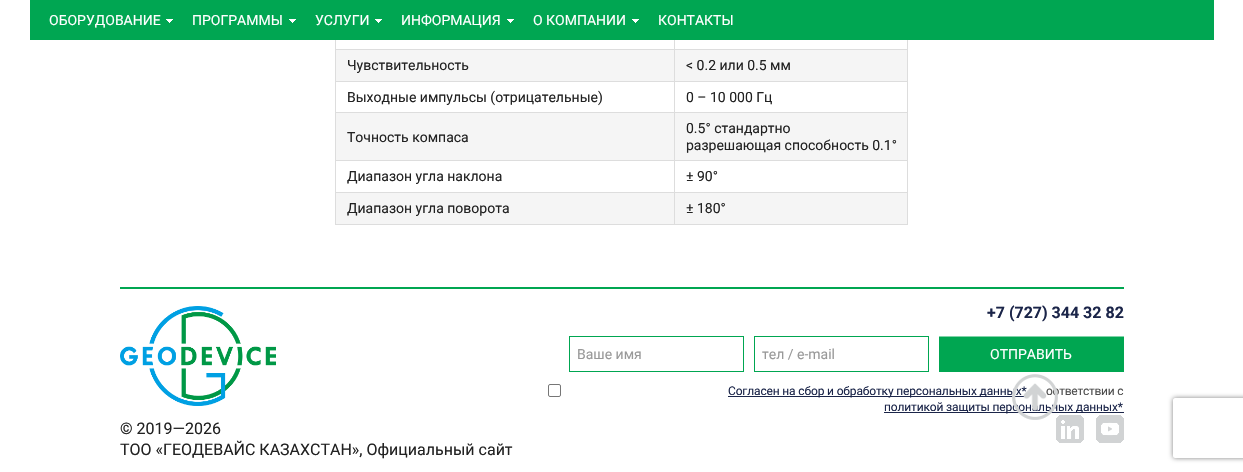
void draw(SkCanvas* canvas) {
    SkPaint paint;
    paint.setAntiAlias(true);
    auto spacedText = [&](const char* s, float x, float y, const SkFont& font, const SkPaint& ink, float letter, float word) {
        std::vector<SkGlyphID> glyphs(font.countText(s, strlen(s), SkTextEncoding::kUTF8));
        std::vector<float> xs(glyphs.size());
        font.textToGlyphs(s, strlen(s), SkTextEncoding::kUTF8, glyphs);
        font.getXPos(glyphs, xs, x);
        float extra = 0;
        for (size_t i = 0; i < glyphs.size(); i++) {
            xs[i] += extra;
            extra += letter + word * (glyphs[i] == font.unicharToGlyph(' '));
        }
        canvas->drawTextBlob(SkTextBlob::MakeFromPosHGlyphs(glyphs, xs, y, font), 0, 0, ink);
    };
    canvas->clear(0xFFFFFFFF);
    paint.setColor(0xFF00A652);
    canvas->drawRect(SkRect::MakeXYWH(30, 0, 1184, 40), paint);
    SkFont font1(fontMgr->matchFamilyStyle("Roboto", SkFontStyle::Normal()), 14);
    font1.setSubpixel(true);
    paint.setColor(0xFFFFFFFF);
    canvas->drawString("ОБОРУДОВАНИЕ", 49, 25, font1, paint);
    canvas->drawImageRect(SkImages::DeferredFromEncodedData(SkData::MakeFromFileName("img1.png")), SkRect::MakeXYWH(166, 19, 7, 4), SkSamplingOptions());
    canvas->drawString("ПРОГРАММЫ", 192, 25, font1, paint);
    canvas->drawImageRect(SkImages::DeferredFromEncodedData(SkData::MakeFromFileName("img1.png")), SkRect::MakeXYWH(289, 19, 7, 4), SkSamplingOptions());
    canvas->drawString("УСЛУГИ", 315, 25, font1, paint);
    canvas->drawImageRect(SkImages::DeferredFromEncodedData(SkData::MakeFromFileName("img1.png")), SkRect::MakeXYWH(375, 19, 7, 4), SkSamplingOptions());
    canvas->drawString("ИНФОРМАЦИЯ", 401, 25, font1, paint);
    canvas->drawImageRect(SkImages::DeferredFromEncodedData(SkData::MakeFromFileName("img1.png")), SkRect::MakeXYWH(507, 19, 7, 4), SkSamplingOptions());
    canvas->drawString("О КОМПАНИИ", 533, 25, font1, paint);
    canvas->drawImageRect(SkImages::DeferredFromEncodedData(SkData::MakeFromFileName("img1.png")), SkRect::MakeXYWH(632, 19, 7, 4), SkSamplingOptions());
    canvas->drawString("КОНТАКТЫ", 658, 25, font1, paint);
    paint.setColor(0xFFDDDDDD);
    canvas->drawRect(SkRect::MakeXYWH(907, 40, 1, 185), paint);
    canvas->drawRect(SkRect::MakeXYWH(335, 224, 573, 1), paint);
    canvas->drawRect(SkRect::MakeXYWH(335, 40, 1, 185), paint);
    canvas->drawRect(SkRect::MakeXYWH(674, 49, 234, 1), paint);
    paint.setColor(0xFFF5F5F5);
    canvas->drawRect(SkRect::MakeXYWH(336, 50, 571, 31), paint);
    paint.setColor(0xFFDDDDDD);
    canvas->drawRect(SkRect::MakeXYWH(674, 81, 234, 1), paint);
    canvas->drawRect(SkRect::MakeXYWH(674, 112, 234, 1), paint);
    paint.setColor(0xFFF5F5F5);
    canvas->drawRect(SkRect::MakeXYWH(336, 113, 571, 47), paint);
    paint.setColor(0xFFDDDDDD);
    canvas->drawRect(SkRect::MakeXYWH(674, 160, 234, 1), paint);
    canvas->drawRect(SkRect::MakeXYWH(674, 192, 234, 1), paint);
    paint.setColor(0xFFF5F5F5);
    canvas->drawRect(SkRect::MakeXYWH(336, 193, 571, 31), paint);
    paint.setColor(0xFFDDDDDD);
    canvas->drawRect(SkRect::MakeXYWH(674, 192, 1, 33), paint);
    canvas->drawRect(SkRect::MakeXYWH(335, 192, 340, 1), paint);
    canvas->drawRect(SkRect::MakeXYWH(674, 160, 1, 33), paint);
    canvas->drawRect(SkRect::MakeXYWH(335, 160, 340, 1), paint);
    canvas->drawRect(SkRect::MakeXYWH(674, 112, 1, 49), paint);
    canvas->drawRect(SkRect::MakeXYWH(335, 112, 340, 1), paint);
    canvas->drawRect(SkRect::MakeXYWH(674, 81, 1, 32), paint);
    canvas->drawRect(SkRect::MakeXYWH(335, 81, 340, 1), paint);
    canvas->drawRect(SkRect::MakeXYWH(674, 49, 1, 33), paint);
    canvas->drawRect(SkRect::MakeXYWH(335, 49, 340, 1), paint);
    canvas->drawRect(SkRect::MakeXYWH(674, 40, 1, 10), paint);
    paint.setColor(0xFF222222);
    canvas->drawString("Чувствительность", 347, 70, font1, paint);
    canvas->drawString("< 0.2 или 0.5 мм", 686, 70, font1, paint);
    canvas->drawString("Выходные импульсы (отрицательные)", 347, 102, font1, paint);
    canvas->drawString("0 – 10 000 Гц", 686, 102, font1, paint);
    canvas->drawString("Точность компаса", 347, 142, font1, paint);
    canvas->drawString("0.5° стандартно", 686, 133, font1, paint);
    canvas->drawString("разрешающая способность 0.1°", 686, 150, font1, paint);
    canvas->drawString("Диапазон угла наклона", 347, 181, font1, paint);
    canvas->drawString("± 90°", 686, 181, font1, paint);
    canvas->drawString("Диапазон угла поворота", 347, 213, font1, paint);
    canvas->drawString("± 180°", 686, 213, font1, paint);
    paint.setColor(0xFF00A651);
    canvas->drawRect(SkRect::MakeXYWH(120, 287, 1004, 2), paint);
    canvas->drawImageRect(SkImages::DeferredFromEncodedData(SkData::MakeFromFileName("img2.png")), SkRect::MakeXYWH(120, 306, 156, 100), SkSamplingOptions());
    SkFont font2(fontMgr->matchFamilyStyle("Roboto", SkFontStyle::Bold()), 16);
    font2.setSubpixel(true);
    paint.setColor(0xFF1B2549);
    canvas->drawString("+7 (727) 344 32 82", 987, 318, font2, paint);
    paint.setStyle(SkPaint::kStroke_Style);
    paint.setStrokeWidth(1);
    paint.setColor(0xFF00A651);
    canvas->drawRect(SkRect::MakeXYWH(569.5f, 336.5f, 174, 35), paint);
    paint.setStyle(SkPaint::kFill_Style);
    paint.setColor(0xFF999999);
    canvas->drawString("Ваше имя", 577, 359, font1, paint);
    paint.setStyle(SkPaint::kStroke_Style);
    paint.setColor(0xFF00A651);
    canvas->drawRect(SkRect::MakeXYWH(754.5f, 336.5f, 174, 35), paint);
    paint.setStyle(SkPaint::kFill_Style);
    paint.setColor(0xFF999999);
    canvas->drawString("тел / e-mail", 762, 359, font1, paint);
    paint.setColor(0xFF00A651);
    canvas->drawRect(SkRect::MakeXYWH(939, 337, 185, 35), paint);
    paint.setColor(0xFF80D3A8);
    canvas->drawRect(SkRect::MakeXYWH(939, 336, 185, 1), paint);
    paint.setColor(0xFFFFFFFF);
    canvas->drawString("ОТПРАВИТЬ", 990, 359, font1, paint);
    paint.setStyle(SkPaint::kStroke_Style);
    paint.setColor(0xFF767676);
    canvas->drawRoundRect(SkRect::MakeXYWH(548.5f, 384.5f, 12, 12), 1.5f, 1.5f, paint);
    paint.setStyle(SkPaint::kFill_Style);
    paint.setColor(0xFF1B2549);
    canvas->drawRect(SkRect::MakeXYWH(728, 396, 294, 1), paint);
    SkFont font3(fontMgr->matchFamilyStyle("Roboto", SkFontStyle::Normal()), 12);
    font3.setSubpixel(true);
    spacedText("Согласен на сбор и обработку персональных данных*", 728, 395, font3, paint, -0.15f, 0);
    canvas->drawRect(SkRect::MakeXYWH(1022, 396, 5, 1), paint);
    paint.setColor(0xFF4D4D4D);
    spacedText("оответствии с", 1046, 395, font3, paint, -0.25f, 0);
    paint.setColor(0xFF1B2549);
    canvas->drawRect(SkRect::MakeXYWH(884, 412, 234, 1), paint);
    spacedText("политикой защиты персональных данных*", 884, 411, font3, paint, -0.15f, 0);
    canvas->drawRect(SkRect::MakeXYWH(1118, 412, 6, 1), paint);
    canvas->drawImageRect(SkImages::DeferredFromEncodedData(SkData::MakeFromFileName("img4.png")), SkRect::MakeXYWH(1056, 415, 28, 28), SkSamplingOptions());
    canvas->drawImageRect(SkImages::DeferredFromEncodedData(SkData::MakeFromFileName("img3.png")), SkRect::MakeXYWH(1012, 374, 46, 46), SkSamplingOptions());
    SkFont font4(fontMgr->matchFamilyStyle("Roboto", SkFontStyle::Normal()), 16);
    font4.setSubpixel(true);
    paint.setColor(0xFF222222);
    canvas->drawString("© 2019—2026", 120, 434, font4, paint);
    canvas->drawString("ТОО «ГЕОДЕВАЙС КАЗАХСТАН», Официальный сайт", 120, 455, font4, paint);
    canvas->drawImageRect(SkImages::DeferredFromEncodedData(SkData::MakeFromFileName("img5.png")), SkRect::MakeXYWH(1096, 415, 28, 28), SkSamplingOptions());
    canvas->save();
    canvas->clipPath(SkPathBuilder(SkPathFillType::kEvenOdd).moveTo(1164, 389).lineTo(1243, 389).lineTo(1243, 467).lineTo(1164, 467).close().moveTo(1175, 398).lineTo(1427, 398).cubicTo(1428, 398, 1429, 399, 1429, 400).lineTo(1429, 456).cubicTo(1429, 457, 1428, 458, 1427, 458).lineTo(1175, 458).cubicTo(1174, 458, 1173, 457, 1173, 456).lineTo(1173, 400).cubicTo(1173, 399, 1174, 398, 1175, 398).close().detach(), true);
    paint.setColor(0xFF808080);
    paint.setMaskFilter(SkMaskFilter::MakeBlur(kNormal_SkBlurStyle, 2.5f));
    canvas->drawRoundRect(SkRect::MakeXYWH(1173, 398, 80, 60), 2, 2, paint);
    paint.setMaskFilter(nullptr);
    canvas->restore();
}
